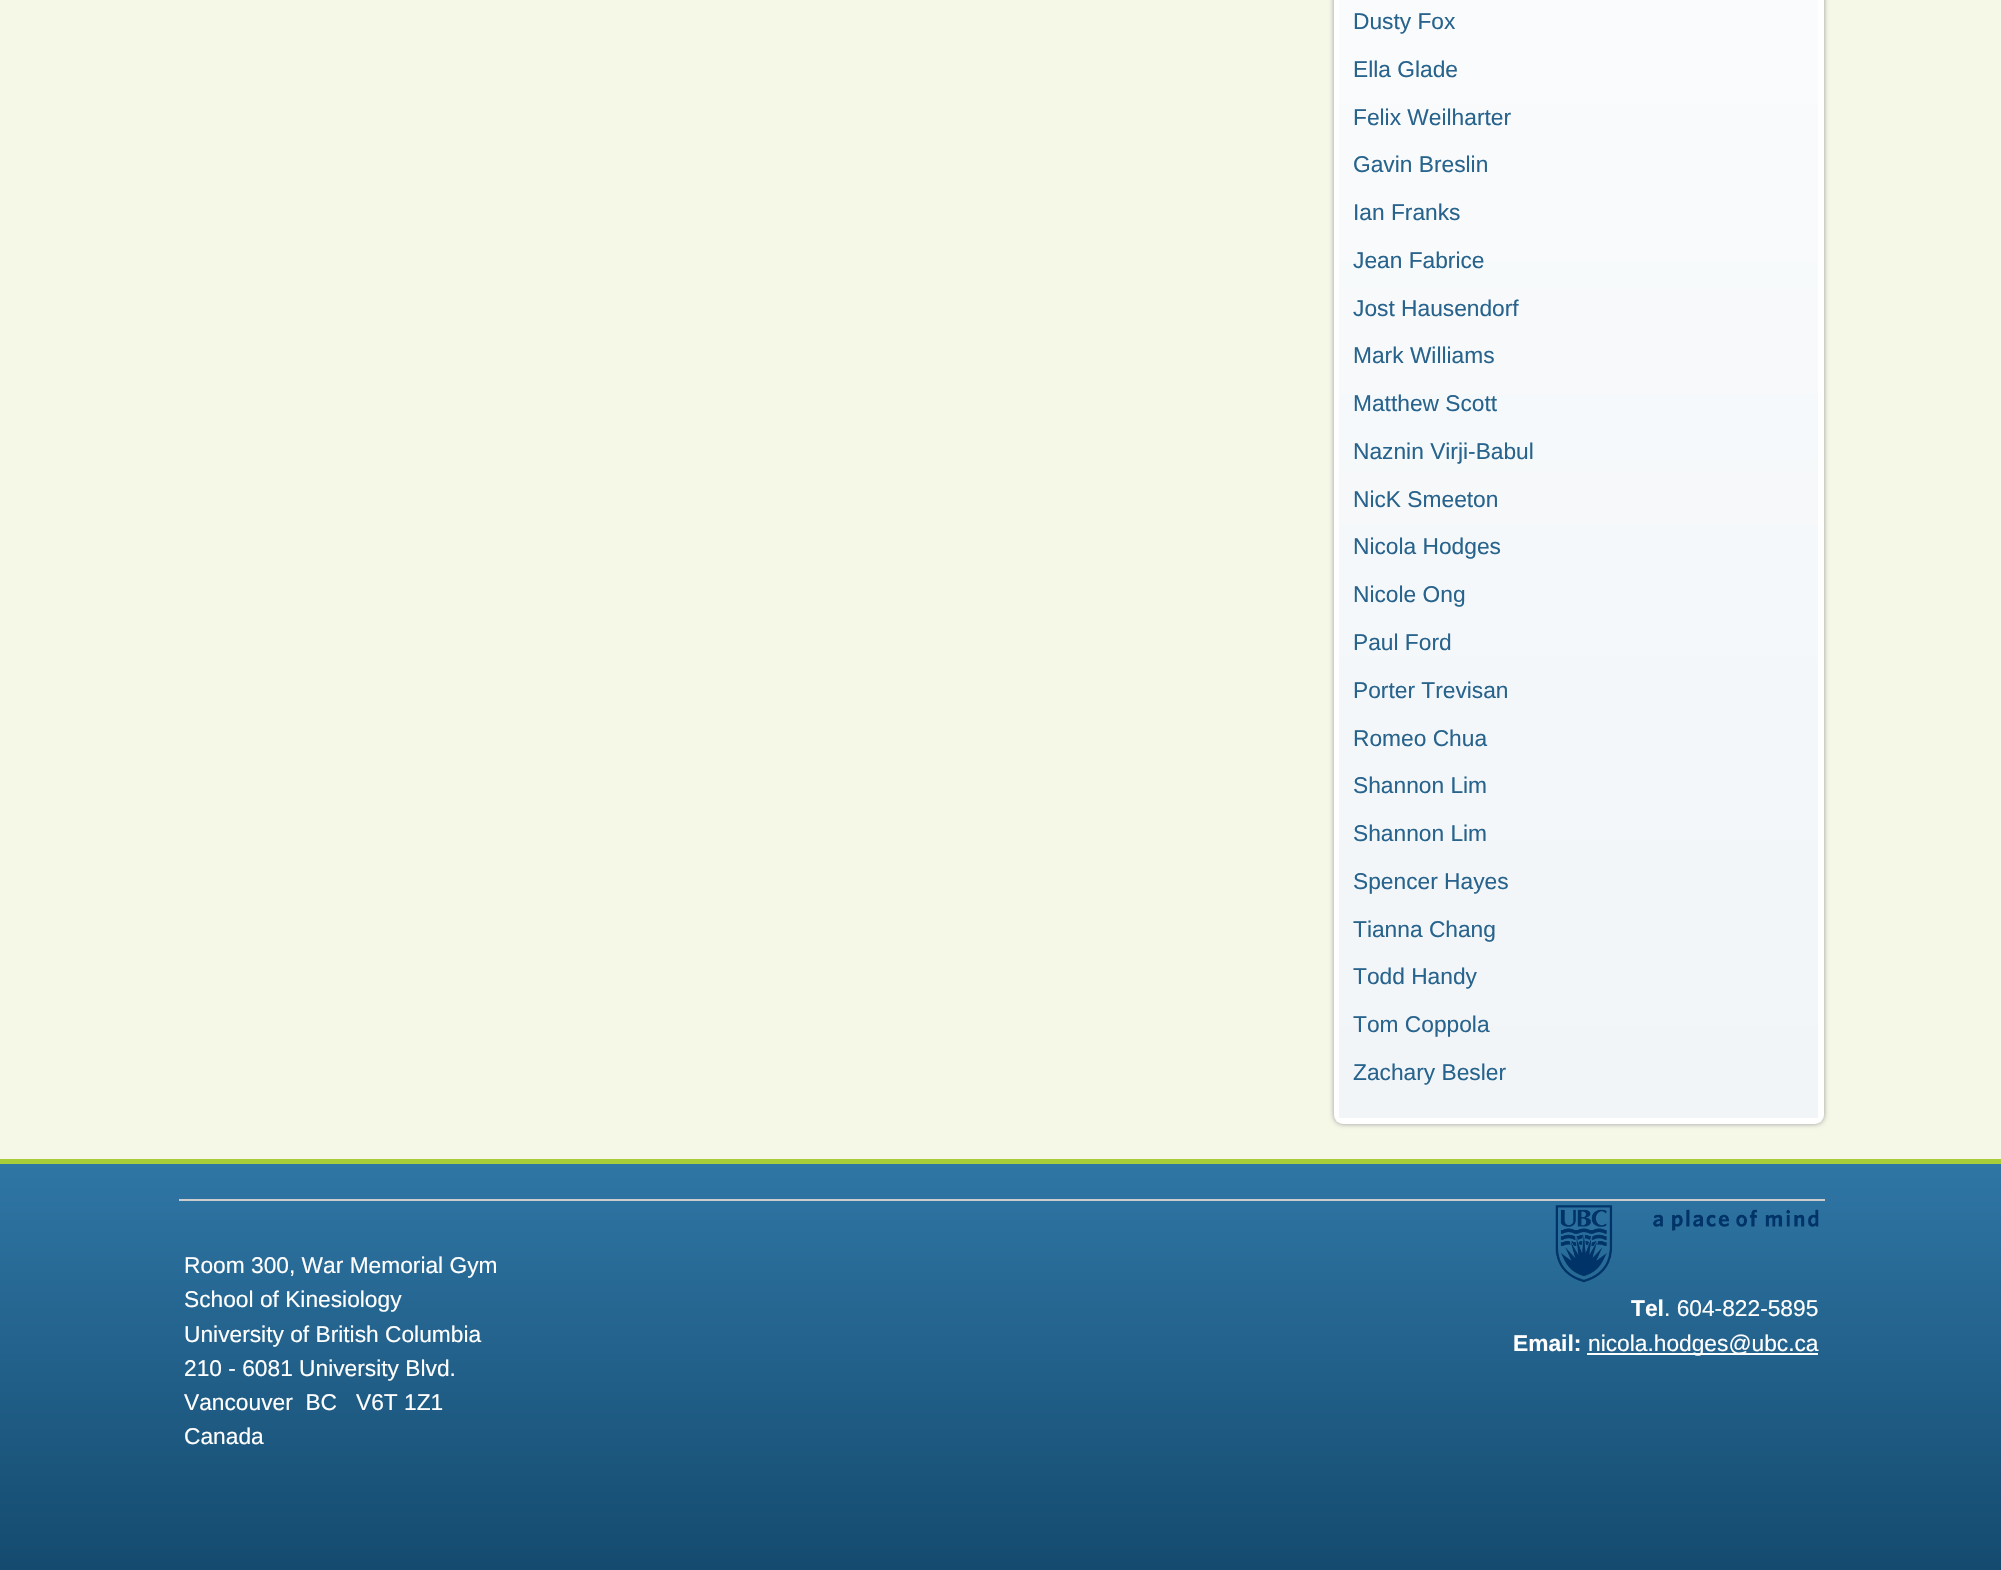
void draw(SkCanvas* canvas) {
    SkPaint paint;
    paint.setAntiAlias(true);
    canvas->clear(0xFFFFFFFF);
    {
        const SkColor colors[] = {0xFFE4EDC2, 0xFFF5F7E7, 0xFFF5F7E7};
        const float stops[] = {0, 0.1f, 1};
        const SkPoint ends[] = {{0, -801}, {0, 1159}};
        paint.setShader(SkGradientShader::MakeLinear(ends, colors, stops, 3, SkTileMode::kClamp));
        paint.setAlpha(255);
    }
    canvas->drawRect(SkRect::MakeXYWH(0, 0, 2001, 1159), paint);
    paint.setShader(nullptr);
    paint.setColor(0xFF999999);
    paint.setMaskFilter(SkMaskFilter::MakeBlur(kNormal_SkBlurStyle, 2.5f));
    canvas->drawRoundRect(SkRect::MakeXYWH(1334, -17, 490, 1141), 9, 9, paint);
    paint.setMaskFilter(nullptr);
    paint.setColor(0xFFFFFFFF);
    canvas->drawRoundRect(SkRect::MakeXYWH(1334, -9, 490, 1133), 9, 9, paint);
    {
        const SkColor colors[] = {0xFFFFFFFF, 0xFFF1F5F8};
        const float stops[] = {0, 1};
        const SkPoint ends[] = {{1339, -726}, {1339, 1118}};
        paint.setShader(SkGradientShader::MakeLinear(ends, colors, stops, 2, SkTileMode::kClamp));
        paint.setAlpha(255);
    }
    canvas->drawRect(SkRect::MakeXYWH(1339, 0, 479, 1118), paint);
    SkFont font1(fontMgr->matchFamilyStyle("Liberation Sans", SkFontStyle::Normal()), 22.75f);
    font1.setSubpixel(true);
    paint.setShader(nullptr);
    paint.setColor(0xFF27638C);
    canvas->drawString("Dusty Fox", 1353, 29, font1, paint);
    canvas->drawString("Ella Glade", 1353, 77, font1, paint);
    canvas->drawString("Felix Weilharter", 1353, 125, font1, paint);
    canvas->drawString("Gavin Breslin", 1353, 172, font1, paint);
    canvas->drawString("Ian Franks", 1353, 220, font1, paint);
    canvas->drawString("Jean Fabrice", 1353, 268, font1, paint);
    canvas->drawString("Jost Hausendorf", 1353, 316, font1, paint);
    canvas->drawString("Mark Williams", 1353, 363, font1, paint);
    canvas->drawString("Matthew Scott", 1353, 411, font1, paint);
    canvas->drawString("Naznin Virji-Babul", 1353, 459, font1, paint);
    canvas->drawString("NicK Smeeton", 1353, 507, font1, paint);
    canvas->drawString("Nicola Hodges", 1353, 554, font1, paint);
    canvas->drawString("Nicole Ong", 1353, 602, font1, paint);
    canvas->drawString("Paul Ford", 1353, 650, font1, paint);
    canvas->drawString("Porter Trevisan", 1353, 698, font1, paint);
    canvas->drawString("Romeo Chua", 1353, 746, font1, paint);
    canvas->drawString("Shannon Lim", 1353, 793, font1, paint);
    canvas->drawString("Shannon Lim", 1353, 841, font1, paint);
    canvas->drawString("Spencer Hayes", 1353, 889, font1, paint);
    canvas->drawString("Tianna Chang", 1353, 937, font1, paint);
    canvas->drawString("Todd Handy", 1353, 984, font1, paint);
    canvas->drawString("Tom Coppola", 1353, 1032, font1, paint);
    canvas->drawString("Zachary Besler", 1353, 1080, font1, paint);
    {
        const SkColor colors[] = {0xFF2F76A5, 0xFF144A6E};
        const float stops[] = {0, 1};
        const SkPoint ends[] = {{0, 1164}, {0, 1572}};
        paint.setShader(SkGradientShader::MakeLinear(ends, colors, stops, 2, SkTileMode::kClamp));
        paint.setAlpha(255);
    }
    canvas->drawRect(SkRect::MakeXYWH(0, 1164, 2001, 406), paint);
    paint.setShader(nullptr);
    paint.setColor(0xFFA7CE38);
    canvas->drawRect(SkRect::MakeXYWH(0, 1159, 2001, 5), paint);
    paint.setColor(0xFFCCCCCC);
    canvas->drawRect(SkRect::MakeXYWH(179, 1199, 1646, 2), paint);
    paint.setColor(0xFFFFFFFF);
    canvas->drawString("Room 300, War Memorial Gym", 184, 1273, font1, paint);
    canvas->drawString("School of Kinesiology", 184, 1307, font1, paint);
    canvas->drawString("University of British Columbia", 184, 1342, font1, paint);
    canvas->drawString("210 - 6081 University Blvd.", 184, 1376, font1, paint);
    canvas->drawString("Vancouver  BC   V6T 1Z1", 184, 1410, font1, paint);
    canvas->drawString("Canada", 184, 1444, font1, paint);
    canvas->drawImageRect(SkImages::DeferredFromEncodedData(SkData::MakeFromFileName("img1.png")), SkRect::MakeXYWH(1555, 1205, 264, 78), SkSamplingOptions());
    SkFont font2(fontMgr->matchFamilyStyle("Liberation Sans", SkFontStyle::Bold()), 22.75f);
    font2.setSubpixel(true);
    canvas->drawString("Tel", 1631, 1316, font2, paint);
    canvas->drawString(". 604-822-5895", 1664, 1316, font1, paint);
    canvas->drawString("Email:", 1513, 1351, font2, paint);
    canvas->drawRect(SkRect::MakeXYWH(1587, 1353, 231, 2), paint);
    canvas->drawString("nicola.hodges@ubc.ca", 1588, 1351, font1, paint);
}
